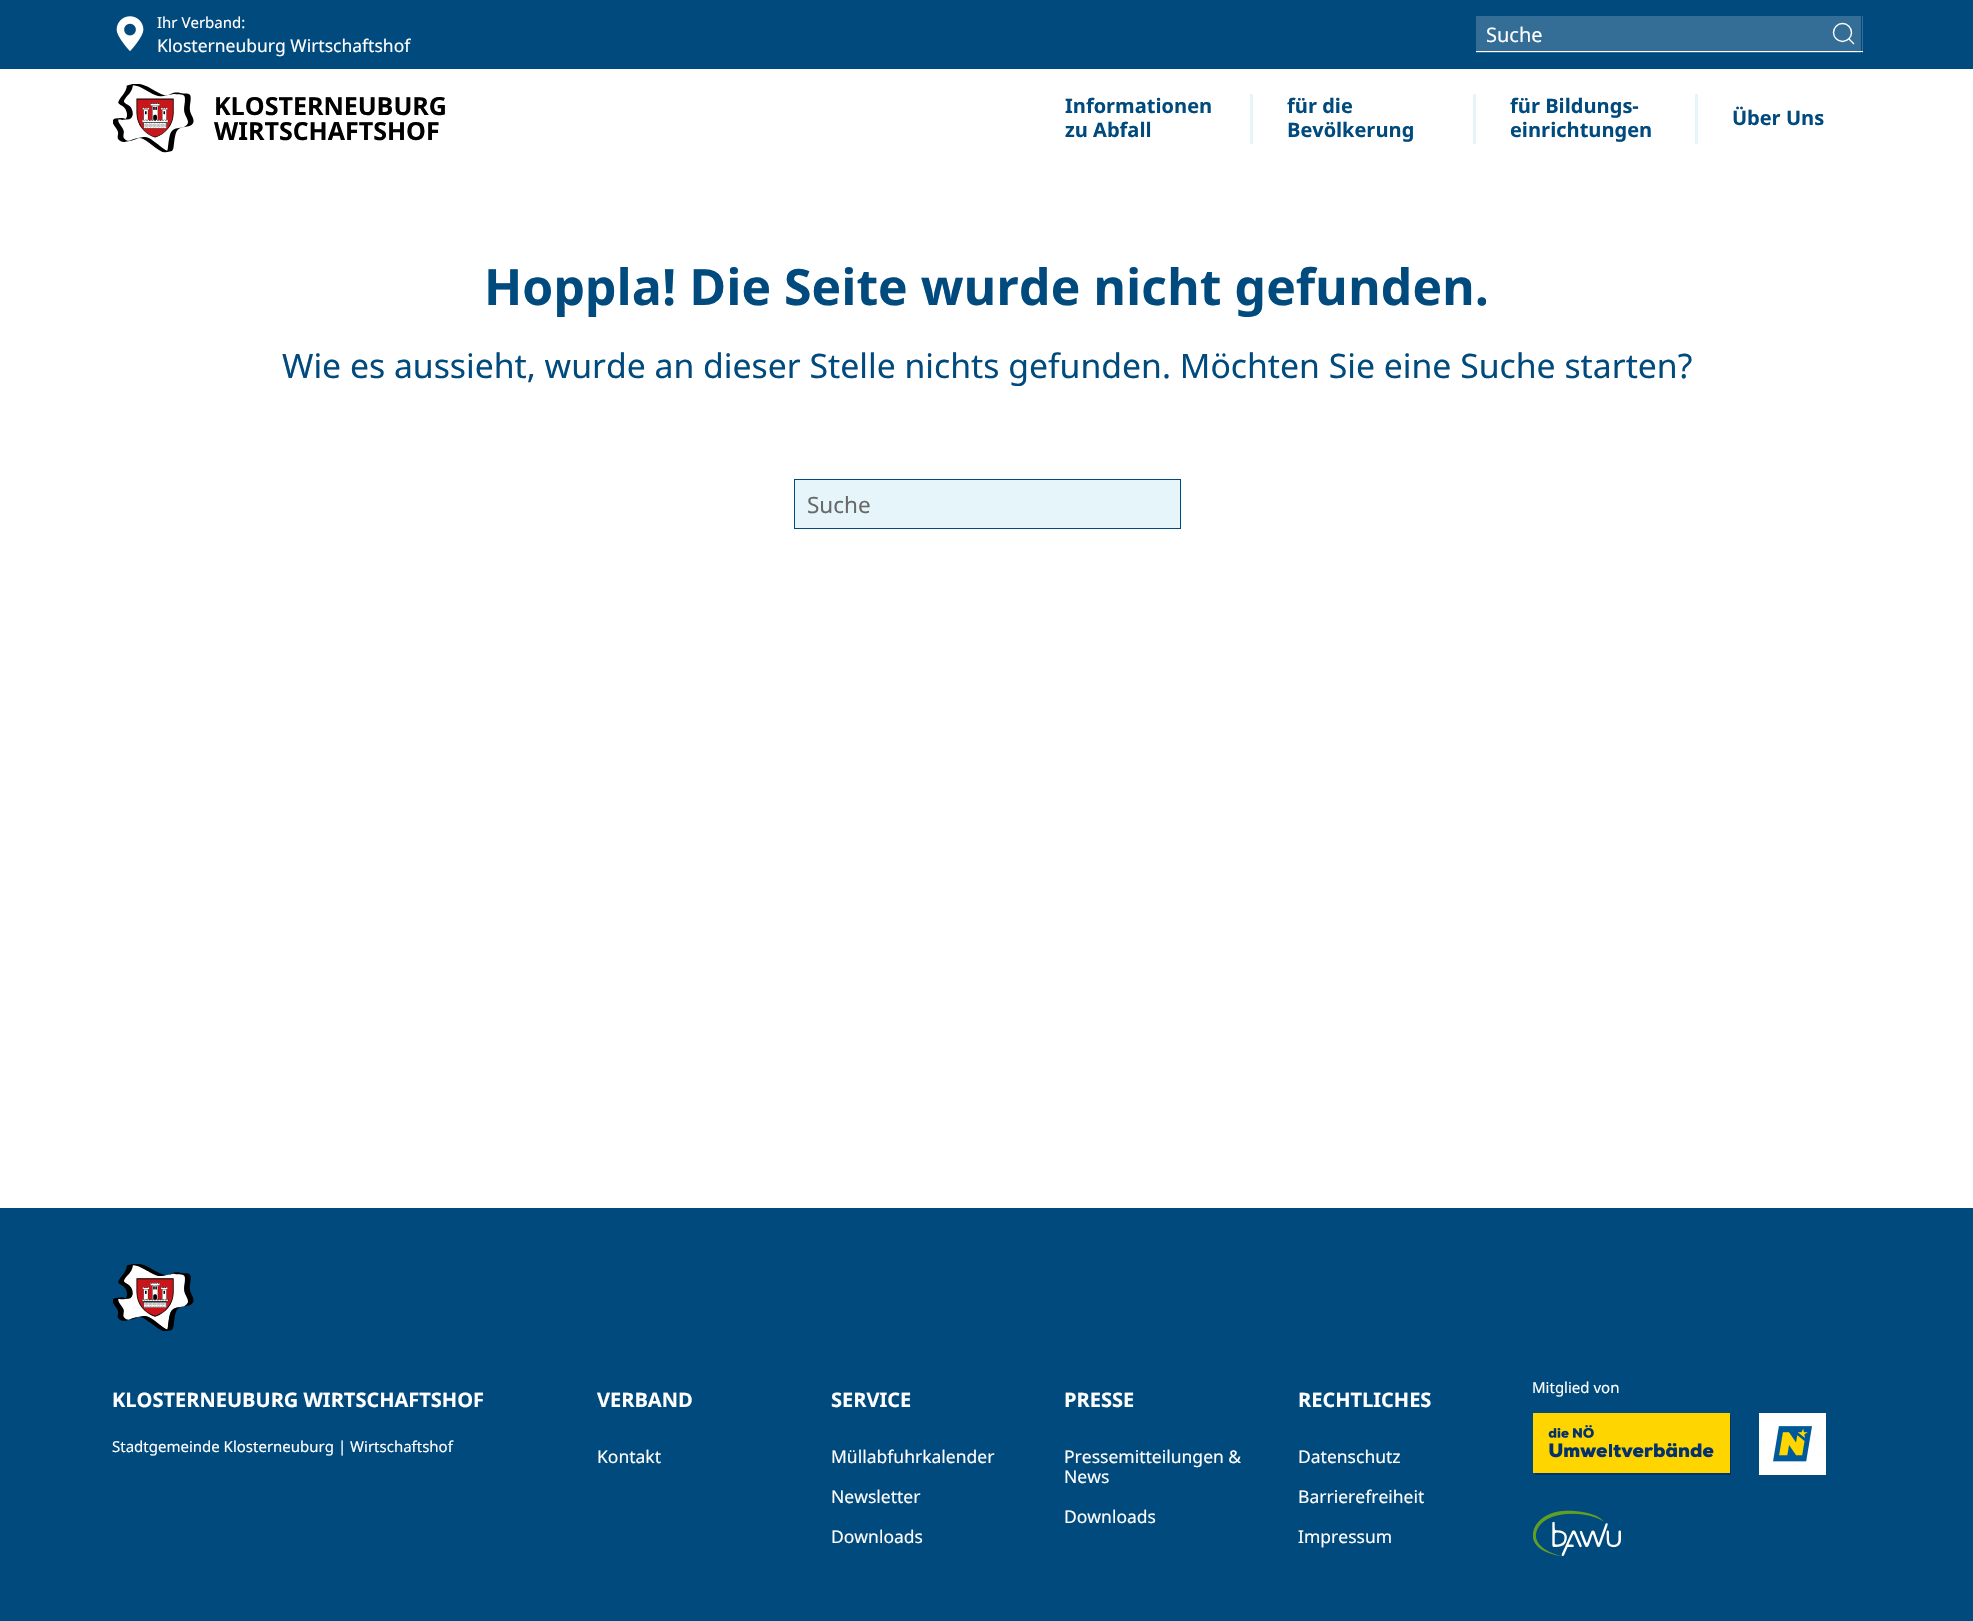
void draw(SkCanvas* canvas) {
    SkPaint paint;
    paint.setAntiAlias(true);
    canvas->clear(0xFFFFFFFF);
    paint.setColor(0xFF014A7D);
    canvas->drawRect(SkRect::MakeXYWH(0, 0, 1973, 69), paint);
    canvas->drawImageRect(SkImages::DeferredFromEncodedData(SkData::MakeFromFileName("img1.png")), SkRect::MakeXYWH(116, 16, 28, 35), SkSamplingOptions());
    SkFont font1(fontMgr->matchFamilyStyle("Noto Sans", SkFontStyle::Normal()), 15);
    font1.setSubpixel(true);
    paint.setColor(0xFFFFFFFF);
    canvas->drawString("Ihr Verband:", 157, 28, font1, paint);
    SkFont font2(fontMgr->matchFamilyStyle("Noto Sans", SkFontStyle::Normal()), 17.5f);
    font2.setSubpixel(true);
    canvas->drawString("Klosterneuburg Wirtschaftshof", 157, 52, font2, paint);
    paint.setColor(0xFF346E97);
    canvas->drawRect(SkRect::MakeXYWH(1476, 16, 387, 37), paint);
    paint.setColor(0xFF014A7D);
    canvas->drawRect(SkRect::MakeXYWH(1861, 15, 1, 38), paint);
    paint.setColor(0xFFFFFFFF);
    canvas->drawRect(SkRect::MakeXYWH(1475, 51, 388, 1), paint);
    paint.setColor(0xFF014A7D);
    canvas->drawRect(SkRect::MakeXYWH(1475, 51, 1, 2), paint);
    SkFont font3(fontMgr->matchFamilyStyle("Noto Sans", SkFontStyle::Normal()), 20);
    font3.setSubpixel(true);
    paint.setColor(0xFFFFFFFF);
    canvas->drawString("Suche", 1486, 42, font3, paint);
    paint.setStyle(SkPaint::kStroke_Style);
    paint.setStrokeWidth(1.4f);
    canvas->drawCircle(1842.5f, 32.5f, 9, paint);
    canvas->drawPath(SkPathBuilder().moveTo(1849, 39).lineTo(1854, 44).close().detach(), paint);
    canvas->drawImageRect(SkImages::DeferredFromEncodedData(SkData::MakeFromFileName("img2.png")), SkRect::MakeXYWH(113, 84, 81, 69), SkSamplingOptions());
    SkFont font4(fontMgr->matchFamilyStyle("Noto Sans", SkFontStyle::Bold()), 25);
    font4.setSubpixel(true);
    paint.setStyle(SkPaint::kFill_Style);
    paint.setColor(0xFF000000);
    canvas->drawString("KLOSTERNEUBURG", 214, 115, font4, paint);
    canvas->drawString("WIRTSCHAFTSHOF", 214, 140, font4, paint);
    SkFont font5(fontMgr->matchFamilyStyle("Noto Sans", SkFontStyle::Bold()), 20);
    font5.setSubpixel(true);
    paint.setColor(0xFF014A7D);
    canvas->drawString("Informationen", 1065, 113, font5, paint);
    canvas->drawString("zu Abfall", 1065, 137, font5, paint);
    paint.setColor(0xFFE6F5FA);
    canvas->drawRect(SkRect::MakeXYWH(1250, 94, 3, 50), paint);
    paint.setColor(0xFF014A7D);
    canvas->drawString("für die", 1287, 113, font5, paint);
    canvas->drawString("Bevölkerung", 1287, 137, font5, paint);
    paint.setColor(0xFFE6F5FA);
    canvas->drawRect(SkRect::MakeXYWH(1473, 94, 3, 50), paint);
    paint.setColor(0xFF014A7D);
    canvas->drawString("für Bildungs-", 1510, 113, font5, paint);
    canvas->drawString("einrichtungen", 1510, 137, font5, paint);
    paint.setColor(0xFFE6F5FA);
    canvas->drawRect(SkRect::MakeXYWH(1695, 94, 3, 50), paint);
    paint.setColor(0xFF014A7D);
    canvas->drawString("Über Uns", 1732, 125, font5, paint);
    SkFont font6(fontMgr->matchFamilyStyle("Noto Sans", SkFontStyle::Bold()), 50);
    font6.setSubpixel(true);
    canvas->drawString("Hoppla! Die Seite wurde nicht gefunden.", 484, 305, font6, paint);
    SkFont font7(fontMgr->matchFamilyStyle("Noto Sans", SkFontStyle::Normal()), 33.75f);
    font7.setSubpixel(true);
    canvas->drawString("Wie es aussieht, wurde an dieser Stelle nichts gefunden. Möchten Sie eine Suche starten?", 282, 378, font7, paint);
    paint.setColor(0xFFE6F5FA);
    canvas->drawRect(SkRect::MakeXYWH(794.5f, 479.5f, 386, 49), paint);
    paint.setStyle(SkPaint::kStroke_Style);
    paint.setStrokeWidth(1);
    paint.setColor(0xFF014A7D);
    canvas->drawRect(SkRect::MakeXYWH(794.5f, 479.5f, 386, 49), paint);
    SkFont font8(fontMgr->matchFamilyStyle("Noto Sans", SkFontStyle::Normal()), 22.5f);
    font8.setSubpixel(true);
    paint.setStyle(SkPaint::kFill_Style);
    paint.setColor(0xFF696969);
    canvas->drawString("Suche", 807, 513, font8, paint);
    paint.setColor(0xFF014A7D);
    canvas->drawRect(SkRect::MakeXYWH(0, 1208, 1973, 413), paint);
    canvas->drawImageRect(SkImages::DeferredFromEncodedData(SkData::MakeFromFileName("img3.png")), SkRect::MakeXYWH(113, 1264, 81, 67), SkSamplingOptions());
    paint.setColor(0xFFFFFFFF);
    canvas->drawString("Mitglied von", 1532, 1393, font1, paint);
    canvas->drawImageRect(SkImages::DeferredFromEncodedData(SkData::MakeFromFileName("img4.png")), SkRect::MakeXYWH(1533, 1413, 198, 62), SkSamplingOptions());
    canvas->drawImageRect(SkImages::DeferredFromEncodedData(SkData::MakeFromFileName("img5.png")), SkRect::MakeXYWH(1759, 1413, 67, 62), SkSamplingOptions());
    canvas->drawImageRect(SkImages::DeferredFromEncodedData(SkData::MakeFromFileName("img6.png")), SkRect::MakeXYWH(1533, 1510, 88, 47), SkSamplingOptions());
    canvas->drawString("KLOSTERNEUBURG WIRTSCHAFTSHOF", 112, 1407, font5, paint);
    canvas->drawString("Stadtgemeinde Klosterneuburg | Wirtschaftshof", 112, 1452, font1, paint);
    canvas->drawString("VERBAND", 597, 1407, font5, paint);
    canvas->drawString("Kontakt", 597, 1463, font2, paint);
    canvas->drawString("SERVICE", 831, 1407, font5, paint);
    canvas->drawString("Müllabfuhrkalender", 831, 1463, font2, paint);
    canvas->drawString("Newsletter", 831, 1503, font2, paint);
    canvas->drawString("Downloads", 831, 1543, font2, paint);
    canvas->drawString("PRESSE", 1064, 1407, font5, paint);
    canvas->drawString("Pressemitteilungen &", 1064, 1463, font2, paint);
    canvas->drawString("News", 1064, 1483, font2, paint);
    canvas->drawString("Downloads", 1064, 1523, font2, paint);
    canvas->drawString("RECHTLICHES", 1298, 1407, font5, paint);
    canvas->drawString("Datenschutz", 1298, 1463, font2, paint);
    canvas->drawString("Barrierefreiheit", 1298, 1503, font2, paint);
    canvas->drawString("Impressum", 1298, 1543, font2, paint);
}
